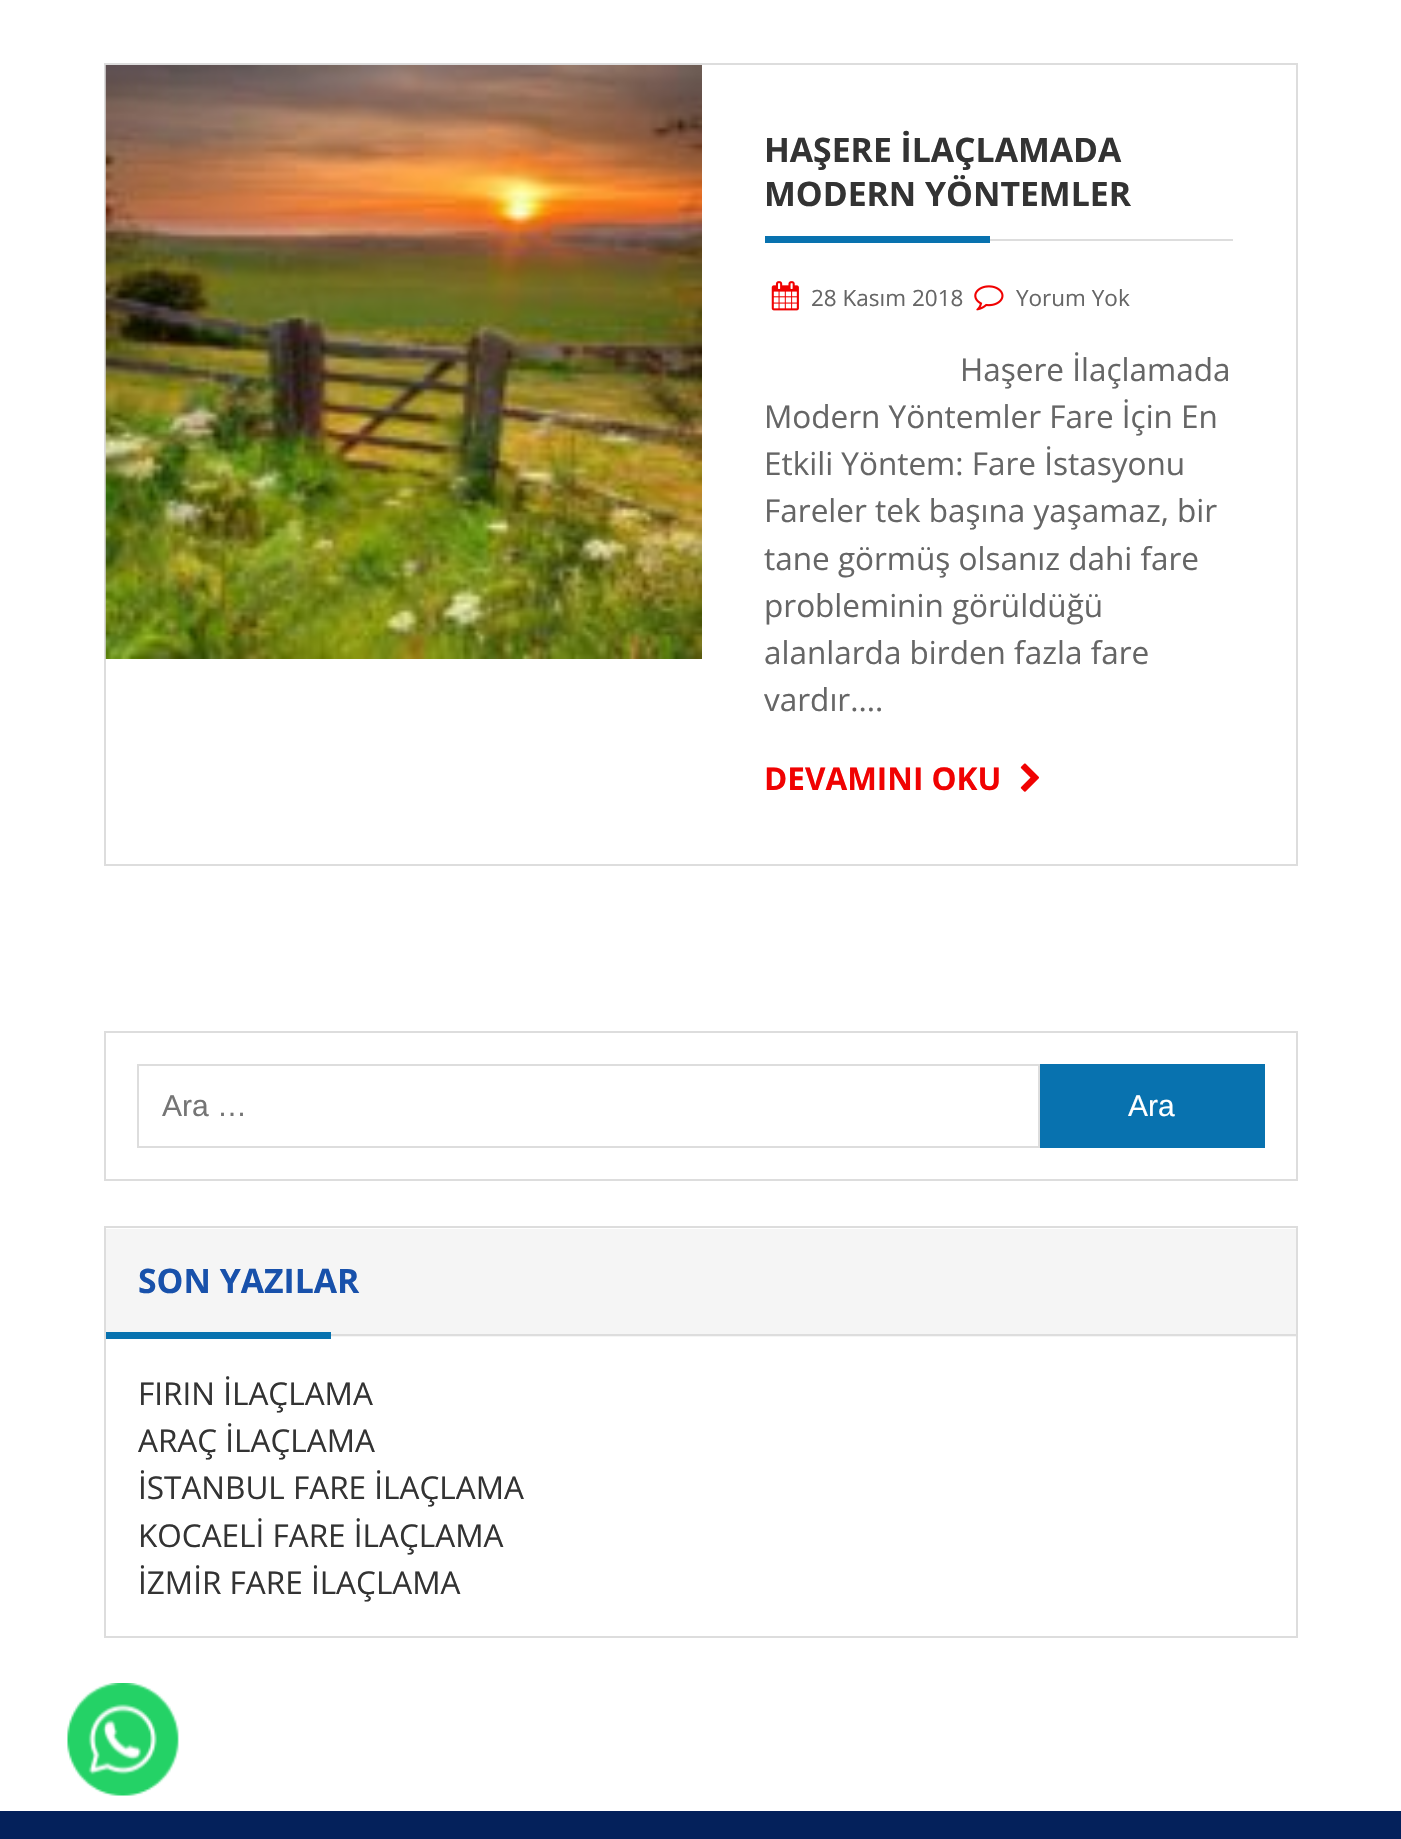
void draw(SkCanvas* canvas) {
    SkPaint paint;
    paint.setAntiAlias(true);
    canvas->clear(0xFFFFFFFF);
    paint.setStyle(SkPaint::kStroke_Style);
    paint.setStrokeWidth(2);
    paint.setColor(0xFFDDDDDD);
    canvas->drawRect(SkRect::MakeXYWH(105, 64, 1192, 801), paint);
    canvas->drawImageRect(SkImages::DeferredFromEncodedData(SkData::MakeFromFileName("img1.png")), SkRect::MakeXYWH(105, 65, 597, 594), SkSamplingOptions());
    paint.setStyle(SkPaint::kFill_Style);
    canvas->drawRect(SkRect::MakeXYWH(990, 239, 243, 2), paint);
    SkFont font1(fontMgr->matchFamilyStyle("Open Sans", SkFontStyle::Bold()), 33.75f);
    font1.setSubpixel(true);
    paint.setColor(0xFF333333);
    canvas->drawString("HAŞERE İLAÇLAMADA", 764, 162, font1, paint);
    canvas->drawString("MODERN YÖNTEMLER", 764, 206, font1, paint);
    paint.setColor(0xFF0872AF);
    canvas->drawRect(SkRect::MakeXYWH(765, 236, 225, 7), paint);
    canvas->drawImageRect(SkImages::DeferredFromEncodedData(SkData::MakeFromFileName("img2.png")), SkRect::MakeXYWH(771, 281, 28, 30), SkSamplingOptions());
    SkFont font2(fontMgr->matchFamilyStyle("Open Sans", SkFontStyle::Normal()), 22.5f);
    font2.setSubpixel(true);
    paint.setColor(0xFF666666);
    canvas->drawString("28 Kasım 2018", 811, 306, font2, paint);
    canvas->drawImageRect(SkImages::DeferredFromEncodedData(SkData::MakeFromFileName("img3.png")), SkRect::MakeXYWH(974, 285, 30, 26), SkSamplingOptions());
    canvas->drawString("Yorum Yok", 1016, 306, font2, paint);
    SkFont font3(fontMgr->matchFamilyStyle("Open Sans", SkFontStyle::Normal()), 31.5f);
    font3.setSubpixel(true);
    canvas->drawString("Haşere İlaçlamada", 960, 381, font3, paint);
    canvas->drawString("Modern Yöntemler Fare İçin En", 764, 428, font3, paint);
    canvas->drawString("Etkili Yöntem: Fare İstasyonu", 764, 475, font3, paint);
    canvas->drawString("Fareler tek başına yaşamaz, bir", 764, 522, font3, paint);
    canvas->drawString("tane görmüş olsanız dahi fare", 764, 570, font3, paint);
    canvas->drawString("probleminin görüldüğü", 764, 617, font3, paint);
    canvas->drawString("alanlarda birden fazla fare", 764, 664, font3, paint);
    canvas->drawString("vardır....", 764, 711, font3, paint);
    SkFont font4(fontMgr->matchFamilyStyle("Open Sans", SkFontStyle::Bold()), 31.5f);
    font4.setSubpixel(true);
    paint.setColor(0xFFF00202);
    canvas->drawString("DEVAMINI OKU", 764, 790, font4, paint);
    canvas->drawImageRect(SkImages::DeferredFromEncodedData(SkData::MakeFromFileName("img4.png")), SkRect::MakeXYWH(1020, 763, 19, 29), SkSamplingOptions());
    paint.setStyle(SkPaint::kStroke_Style);
    paint.setColor(0xFFDDDDDD);
    canvas->drawRect(SkRect::MakeXYWH(105, 1032, 1192, 148), paint);
    canvas->drawRect(SkRect::MakeXYWH(138, 1065, 901, 82), paint);
    SkFont font5(fontMgr->matchFamilyStyle("Liberation Sans", SkFontStyle::Normal()), 30);
    font5.setSubpixel(true);
    paint.setStyle(SkPaint::kFill_Style);
    paint.setColor(0xFF757575);
    canvas->drawString("Ara …", 162, 1116, font5, paint);
    paint.setColor(0xFF0872AF);
    canvas->drawRect(SkRect::MakeXYWH(1040, 1064, 225, 84), paint);
    paint.setColor(0xFFFFFFFF);
    canvas->drawString("Ara", 1128, 1116, font5, paint);
    paint.setStyle(SkPaint::kStroke_Style);
    paint.setColor(0xFFDDDDDD);
    canvas->drawRect(SkRect::MakeXYWH(105, 1227, 1192, 410), paint);
    paint.setStyle(SkPaint::kFill_Style);
    paint.setColor(0xFFF5F5F5);
    canvas->drawRect(SkRect::MakeXYWH(106, 1229, 1190, 108), paint);
    paint.setColor(0xFFDDDDDD);
    canvas->drawRect(SkRect::MakeXYWH(331, 1334, 965, 2), paint);
    paint.setColor(0xFF1851AB);
    canvas->drawString("SON YAZILAR", 138, 1293, font1, paint);
    paint.setColor(0xFF0872AF);
    canvas->drawRect(SkRect::MakeXYWH(106, 1332, 225, 7), paint);
    paint.setColor(0xFF333333);
    canvas->drawString("FIRIN İLAÇLAMA", 138, 1405, font3, paint);
    canvas->drawString("ARAÇ İLAÇLAMA", 138, 1452, font3, paint);
    canvas->drawString("İSTANBUL FARE İLAÇLAMA", 138, 1499, font3, paint);
    canvas->drawString("KOCAELİ FARE İLAÇLAMA", 138, 1547, font3, paint);
    canvas->drawString("İZMİR FARE İLAÇLAMA", 138, 1594, font3, paint);
    paint.setColor(0xFF04215B);
    canvas->drawRect(SkRect::MakeXYWH(0, 1811, 1401, 28), paint);
    canvas->drawImageRect(SkImages::DeferredFromEncodedData(SkData::MakeFromFileName("img5.png")), SkRect::MakeXYWH(67, 1683, 112, 113), SkSamplingOptions());
}
